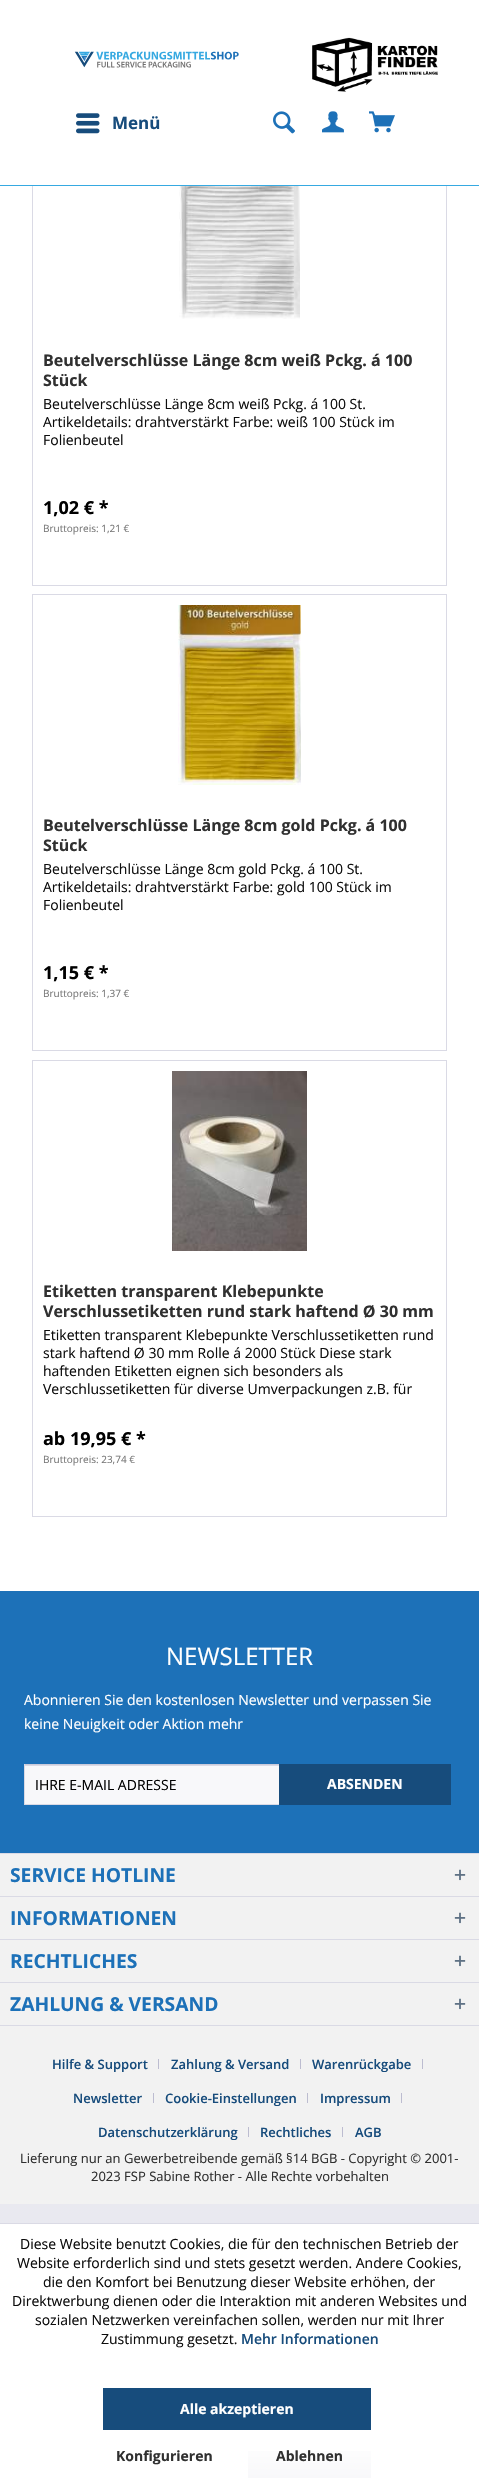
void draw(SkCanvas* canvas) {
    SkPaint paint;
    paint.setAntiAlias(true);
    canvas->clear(0xFFE9E9F0);
    paint.setColor(0xFFFFFFFF);
    canvas->drawRect(SkRect::MakeXYWH(0, 186, 479, 1405), paint);
    paint.setStyle(SkPaint::kStroke_Style);
    paint.setStrokeWidth(1);
    paint.setColor(0xFFDADAE5);
    canvas->drawRect(SkRect::MakeXYWH(32.5f, 129.5f, 414, 456), paint);
    paint.setStyle(SkPaint::kFill_Style);
    paint.setColor(0xFFFFFFFF);
    canvas->drawRect(SkRect::MakeXYWH(0, 0, 479, 185), paint);
    paint.setColor(0xFF36A9E1);
    canvas->drawRect(SkRect::MakeXYWH(0, 185, 479, 1), paint);
    canvas->drawImageRect(SkImages::DeferredFromEncodedData(SkData::MakeFromFileName("img1.png")), SkRect::MakeXYWH(74, 51, 165, 17), SkSamplingOptions());
    canvas->drawImageRect(SkImages::DeferredFromEncodedData(SkData::MakeFromFileName("img2.png")), SkRect::MakeXYWH(312, 37, 126, 55), SkSamplingOptions());
    canvas->drawImageRect(SkImages::DeferredFromEncodedData(SkData::MakeFromFileName("img3.png")), SkRect::MakeXYWH(76, 113, 24, 21), SkSamplingOptions());
    SkFont font1(fontMgr->matchFamilyStyle("Open Sans", SkFontStyle::Bold()), 17);
    font1.setSubpixel(true);
    paint.setColor(0xFF174C7C);
    canvas->drawString("Menü", 112, 129, font1, paint);
    canvas->drawImageRect(SkImages::DeferredFromEncodedData(SkData::MakeFromFileName("img4.png")), SkRect::MakeXYWH(273, 111, 22, 23), SkSamplingOptions());
    canvas->drawImageRect(SkImages::DeferredFromEncodedData(SkData::MakeFromFileName("img5.png")), SkRect::MakeXYWH(322, 111, 22, 22), SkSamplingOptions());
    canvas->drawImageRect(SkImages::DeferredFromEncodedData(SkData::MakeFromFileName("img6.png")), SkRect::MakeXYWH(369, 111, 26, 22), SkSamplingOptions());
    canvas->drawImageRect(SkImages::DeferredFromEncodedData(SkData::MakeFromFileName("img7.png")), SkRect::MakeXYWH(179, 186, 121, 133), SkSamplingOptions());
    SkFont font2(fontMgr->matchFamilyStyle("Open Sans", SkFontStyle::Bold()), 16);
    font2.setSubpixel(true);
    paint.setColor(0xFF303030);
    canvas->drawString("Beutelverschlüsse Länge 8cm weiß Pckg. á 100", 43, 366, font2, paint);
    canvas->drawString("Stück", 43, 386, font2, paint);
    SkFont font3(fontMgr->matchFamilyStyle("Open Sans", SkFontStyle::Normal()), 14);
    font3.setSubpixel(true);
    paint.setColor(0xFF0D0D0D);
    canvas->drawString("Beutelverschlüsse Länge 8cm weiß Pckg. á 100 St.", 43, 409, font3, paint);
    canvas->drawString("Artikeldetails: drahtverstärkt Farbe: weiß 100 Stück im", 43, 427, font3, paint);
    canvas->drawString("Folienbeutel", 43, 445, font3, paint);
    SkFont font4(fontMgr->matchFamilyStyle("Open Sans", SkFontStyle::Bold()), 18);
    font4.setSubpixel(true);
    paint.setColor(0xFF000000);
    canvas->drawString("1,02 € *", 43, 514, font4, paint);
    SkFont font5(fontMgr->matchFamilyStyle("Open Sans", SkFontStyle::Normal()), 10);
    font5.setSubpixel(true);
    paint.setColor(0xFF777777);
    canvas->drawString("Bruttopreis: 1,21 €", 43, 532, font5, paint);
    paint.setStyle(SkPaint::kStroke_Style);
    paint.setColor(0xFFDADAE5);
    canvas->drawRect(SkRect::MakeXYWH(32.5f, 594.5f, 414, 456), paint);
    canvas->drawImageRect(SkImages::DeferredFromEncodedData(SkData::MakeFromFileName("img8.png")), SkRect::MakeXYWH(178, 605, 123, 180), SkSamplingOptions());
    paint.setStyle(SkPaint::kFill_Style);
    paint.setColor(0xFF303030);
    canvas->drawString("Beutelverschlüsse Länge 8cm gold Pckg. á 100", 43, 831, font2, paint);
    canvas->drawString("Stück", 43, 851, font2, paint);
    paint.setColor(0xFF0D0D0D);
    canvas->drawString("Beutelverschlüsse Länge 8cm gold Pckg. á 100 St.", 43, 874, font3, paint);
    canvas->drawString("Artikeldetails: drahtverstärkt Farbe: gold 100 Stück im", 43, 892, font3, paint);
    canvas->drawString("Folienbeutel", 43, 910, font3, paint);
    paint.setColor(0xFF000000);
    canvas->drawString("1,15 € *", 43, 979, font4, paint);
    paint.setColor(0xFF777777);
    canvas->drawString("Bruttopreis: 1,37 €", 43, 997, font5, paint);
    paint.setStyle(SkPaint::kStroke_Style);
    paint.setColor(0xFFDADAE5);
    canvas->drawRect(SkRect::MakeXYWH(32.5f, 1060.5f, 414, 456), paint);
    canvas->drawImageRect(SkImages::DeferredFromEncodedData(SkData::MakeFromFileName("img9.png")), SkRect::MakeXYWH(172, 1071, 135, 180), SkSamplingOptions());
    paint.setStyle(SkPaint::kFill_Style);
    paint.setColor(0xFF303030);
    canvas->drawString("Etiketten transparent Klebepunkte", 43, 1297, font2, paint);
    canvas->drawString("Verschlussetiketten rund stark haftend Ø 30 mm", 43, 1317, font2, paint);
    paint.setColor(0xFF0D0D0D);
    canvas->drawString("Etiketten transparent Klebepunkte Verschlussetiketten rund", 43, 1340, font3, paint);
    canvas->drawString("stark haftend Ø 30 mm Rolle á 2000 Stück Diese stark", 43, 1358, font3, paint);
    canvas->drawString("haftenden Etiketten eignen sich besonders als", 43, 1376, font3, paint);
    canvas->drawString("Verschlussetiketten für diverse Umverpackungen z.B. für", 43, 1394, font3, paint);
    paint.setColor(0xFF000000);
    canvas->drawString("ab 19,95 € *", 43, 1445, font4, paint);
    paint.setColor(0xFF777777);
    canvas->drawString("Bruttopreis: 23,74 €", 43, 1463, font5, paint);
    paint.setColor(0xFF1D71B8);
    canvas->drawRect(SkRect::MakeXYWH(0, 1591, 479, 262), paint);
    SkFont font6(fontMgr->matchFamilyStyle("Open Sans", SkFontStyle::Normal()), 24);
    font6.setSubpixel(true);
    paint.setColor(0xFFFFFFFF);
    canvas->drawString("NEWSLETTER", 166, 1665, font6, paint);
    canvas->drawString("Abonnieren Sie den kostenlosen Newsletter und verpassen Sie", 24, 1705, font3, paint);
    canvas->drawString("keine Neuigkeit oder Aktion mehr", 24, 1729, font3, paint);
    paint.setColor(0xFFF8F8FA);
    canvas->drawRect(SkRect::MakeXYWH(25, 1766, 254, 38), paint);
    paint.setColor(0xFFDADAE5);
    canvas->drawRect(SkRect::MakeXYWH(25, 1765, 257, 1), paint);
    paint.setColor(0xFFCBCBDB);
    canvas->drawRect(SkRect::MakeXYWH(24, 1764, 259, 1), paint);
    paint.setColor(0xFFDADAE5);
    canvas->drawRect(SkRect::MakeXYWH(24, 1804, 259, 1), paint);
    canvas->drawRect(SkRect::MakeXYWH(24, 1764, 1, 41), paint);
    paint.setColor(0xFF000000);
    canvas->drawString("IHRE E-MAIL ADRESSE", 35, 1790, font3, paint);
    paint.setColor(0xFF174C7C);
    canvas->drawRect(SkRect::MakeXYWH(279, 1764, 172, 41), paint);
    SkFont font7(fontMgr->matchFamilyStyle("Open Sans", SkFontStyle::Bold()), 14);
    font7.setSubpixel(true);
    paint.setColor(0xFFFFFFFF);
    canvas->drawString("ABSENDEN", 327, 1789, font7, paint);
    paint.setColor(0xFFF2F2F2);
    canvas->drawRect(SkRect::MakeXYWH(0, 1854, 479, 350), paint);
    paint.setColor(0xFFDADAE5);
    canvas->drawRect(SkRect::MakeXYWH(0, 1853, 479, 1), paint);
    SkFont font8(fontMgr->matchFamilyStyle("Open Sans", SkFontStyle::Bold()), 19.25f);
    font8.setSubpixel(true);
    paint.setColor(0xFF1D71B8);
    canvas->drawString("SERVICE HOTLINE", 10, 1882, font8, paint);
    canvas->drawImageRect(SkImages::DeferredFromEncodedData(SkData::MakeFromFileName("img10.png")), SkRect::MakeXYWH(454, 1869, 12, 12), SkSamplingOptions());
    paint.setColor(0xFFDADAE5);
    canvas->drawRect(SkRect::MakeXYWH(0, 1896, 479, 1), paint);
    paint.setColor(0xFF1D71B8);
    canvas->drawString("INFORMATIONEN", 10, 1925, font8, paint);
    canvas->drawImageRect(SkImages::DeferredFromEncodedData(SkData::MakeFromFileName("img10.png")), SkRect::MakeXYWH(454, 1912, 12, 12), SkSamplingOptions());
    paint.setColor(0xFFDADAE5);
    canvas->drawRect(SkRect::MakeXYWH(0, 1939, 479, 1), paint);
    paint.setColor(0xFF1D71B8);
    canvas->drawString("RECHTLICHES", 10, 1968, font8, paint);
    canvas->drawImageRect(SkImages::DeferredFromEncodedData(SkData::MakeFromFileName("img10.png")), SkRect::MakeXYWH(454, 1955, 12, 12), SkSamplingOptions());
    paint.setColor(0xFFDADAE5);
    canvas->drawRect(SkRect::MakeXYWH(0, 1982, 479, 1), paint);
    canvas->drawRect(SkRect::MakeXYWH(0, 2025, 479, 1), paint);
    paint.setColor(0xFF1D71B8);
    canvas->drawString("ZAHLUNG & VERSAND", 10, 2011, font8, paint);
    canvas->drawImageRect(SkImages::DeferredFromEncodedData(SkData::MakeFromFileName("img10.png")), SkRect::MakeXYWH(454, 1998, 12, 12), SkSamplingOptions());
    SkFont font9(fontMgr->matchFamilyStyle("Open Sans", SkFontStyle(600, SkFontStyle::kNormal_Width, SkFontStyle::kUpright_Slant)), 13);
    font9.setSubpixel(true);
    paint.setColor(0xFF174C7C);
    canvas->drawString("Hilfe & Support", 52, 2069, font9, paint);
    paint.setColor(0xFFBCBCD0);
    canvas->drawRect(SkRect::MakeXYWH(158, 2059, 1, 10), paint);
    paint.setColor(0xFF174C7C);
    canvas->drawString("Zahlung & Versand", 171, 2069, font9, paint);
    paint.setColor(0xFFBCBCD0);
    canvas->drawRect(SkRect::MakeXYWH(300, 2059, 1, 10), paint);
    paint.setColor(0xFF174C7C);
    canvas->drawString("Warenrückgabe", 312, 2069, font9, paint);
    paint.setColor(0xFFBCBCD0);
    canvas->drawRect(SkRect::MakeXYWH(422, 2059, 1, 10), paint);
    paint.setColor(0xFF174C7C);
    canvas->drawString("Newsletter", 73, 2103, font9, paint);
    paint.setColor(0xFFBCBCD0);
    canvas->drawRect(SkRect::MakeXYWH(153, 2093, 1, 10), paint);
    paint.setColor(0xFF174C7C);
    canvas->drawString("Cookie-Einstellungen", 165, 2103, font9, paint);
    paint.setColor(0xFFBCBCD0);
    canvas->drawRect(SkRect::MakeXYWH(307, 2093, 1, 10), paint);
    paint.setColor(0xFF174C7C);
    canvas->drawString("Impressum", 320, 2103, font9, paint);
    paint.setColor(0xFFBCBCD0);
    canvas->drawRect(SkRect::MakeXYWH(401, 2093, 1, 10), paint);
    paint.setColor(0xFF174C7C);
    canvas->drawString("Datenschutzerklärung", 98, 2137, font9, paint);
    paint.setColor(0xFFBCBCD0);
    canvas->drawRect(SkRect::MakeXYWH(248, 2127, 1, 10), paint);
    paint.setColor(0xFF174C7C);
    canvas->drawString("Rechtliches", 260, 2137, font9, paint);
    paint.setColor(0xFFBCBCD0);
    canvas->drawRect(SkRect::MakeXYWH(342, 2127, 1, 10), paint);
    paint.setColor(0xFF174C7C);
    canvas->drawString("AGB", 355, 2137, font9, paint);
    SkFont font10(fontMgr->matchFamilyStyle("Open Sans", SkFontStyle::Normal()), 13);
    font10.setSubpixel(true);
    paint.setColor(0xFF303030);
    canvas->drawString("Lieferung nur an Gewerbetreibende gemäß §14 BGB - Copyright © 2001-", 20, 2163, font10, paint);
    canvas->drawString("2023 FSP Sabine Rother - Alle Rechte vorbehalten", 91, 2181, font10, paint);
    paint.setColor(0xFFFFFFFF);
    canvas->drawRect(SkRect::MakeXYWH(0, 2224, 479, 263), paint);
    paint.setColor(0xFFDADAE5);
    canvas->drawRect(SkRect::MakeXYWH(0, 2223, 479, 1), paint);
    paint.setColor(0xFF0D0D0D);
    canvas->drawString("Diese Website benutzt Cookies, die für den technischen Betrieb der", 20, 2249, font3, paint);
    canvas->drawString("Website erforderlich sind und stets gesetzt werden. Andere Cookies,", 17, 2268, font3, paint);
    canvas->drawString("die den Komfort bei Benutzung dieser Website erhöhen, der", 43, 2287, font3, paint);
    canvas->drawString("Direktwerbung dienen oder die Interaktion mit anderen Websites und", 12, 2306, font3, paint);
    canvas->drawString("sozialen Netzwerken vereinfachen sollen, werden nur mit Ihrer", 35, 2325, font3, paint);
    canvas->drawString("Zustimmung gesetzt.", 101, 2344, font3, paint);
    SkFont font11(fontMgr->matchFamilyStyle("Open Sans", SkFontStyle(600, SkFontStyle::kNormal_Width, SkFontStyle::kUpright_Slant)), 14);
    font11.setSubpixel(true);
    paint.setColor(0xFF174C7C);
    canvas->drawString("Mehr Informationen", 241, 2344, font11, paint);
    canvas->drawRect(SkRect::MakeXYWH(103.5f, 2388.5f, 267, 41), paint);
    paint.setStyle(SkPaint::kStroke_Style);
    canvas->drawRect(SkRect::MakeXYWH(103.5f, 2388.5f, 267, 41), paint);
    paint.setStyle(SkPaint::kFill_Style);
    paint.setColor(0xFFFFFFFF);
    canvas->drawString("Alle akzeptieren", 180, 2414, font7, paint);
    paint.setColor(0xFF303030);
    canvas->drawString("Konfigurieren", 116, 2461, font7, paint);
    {
        const SkColor colors[] = {0xFFFFFFFF, 0xFFF8F8FA};
        const float stops[] = {0, 1};
        const SkPoint ends[] = {{310, 2436}, {310, 2478}};
        paint.setShader(SkGradientShader::MakeLinear(ends, colors, stops, 2, SkTileMode::kClamp));
        paint.setAlpha(255);
    }
    canvas->drawRect(SkRect::MakeXYWH(248, 2451, 123, 27), paint);
    paint.setShader(nullptr);
    paint.setColor(0xFF303030);
    canvas->drawString("Ablehnen", 276, 2461, font7, paint);
}
